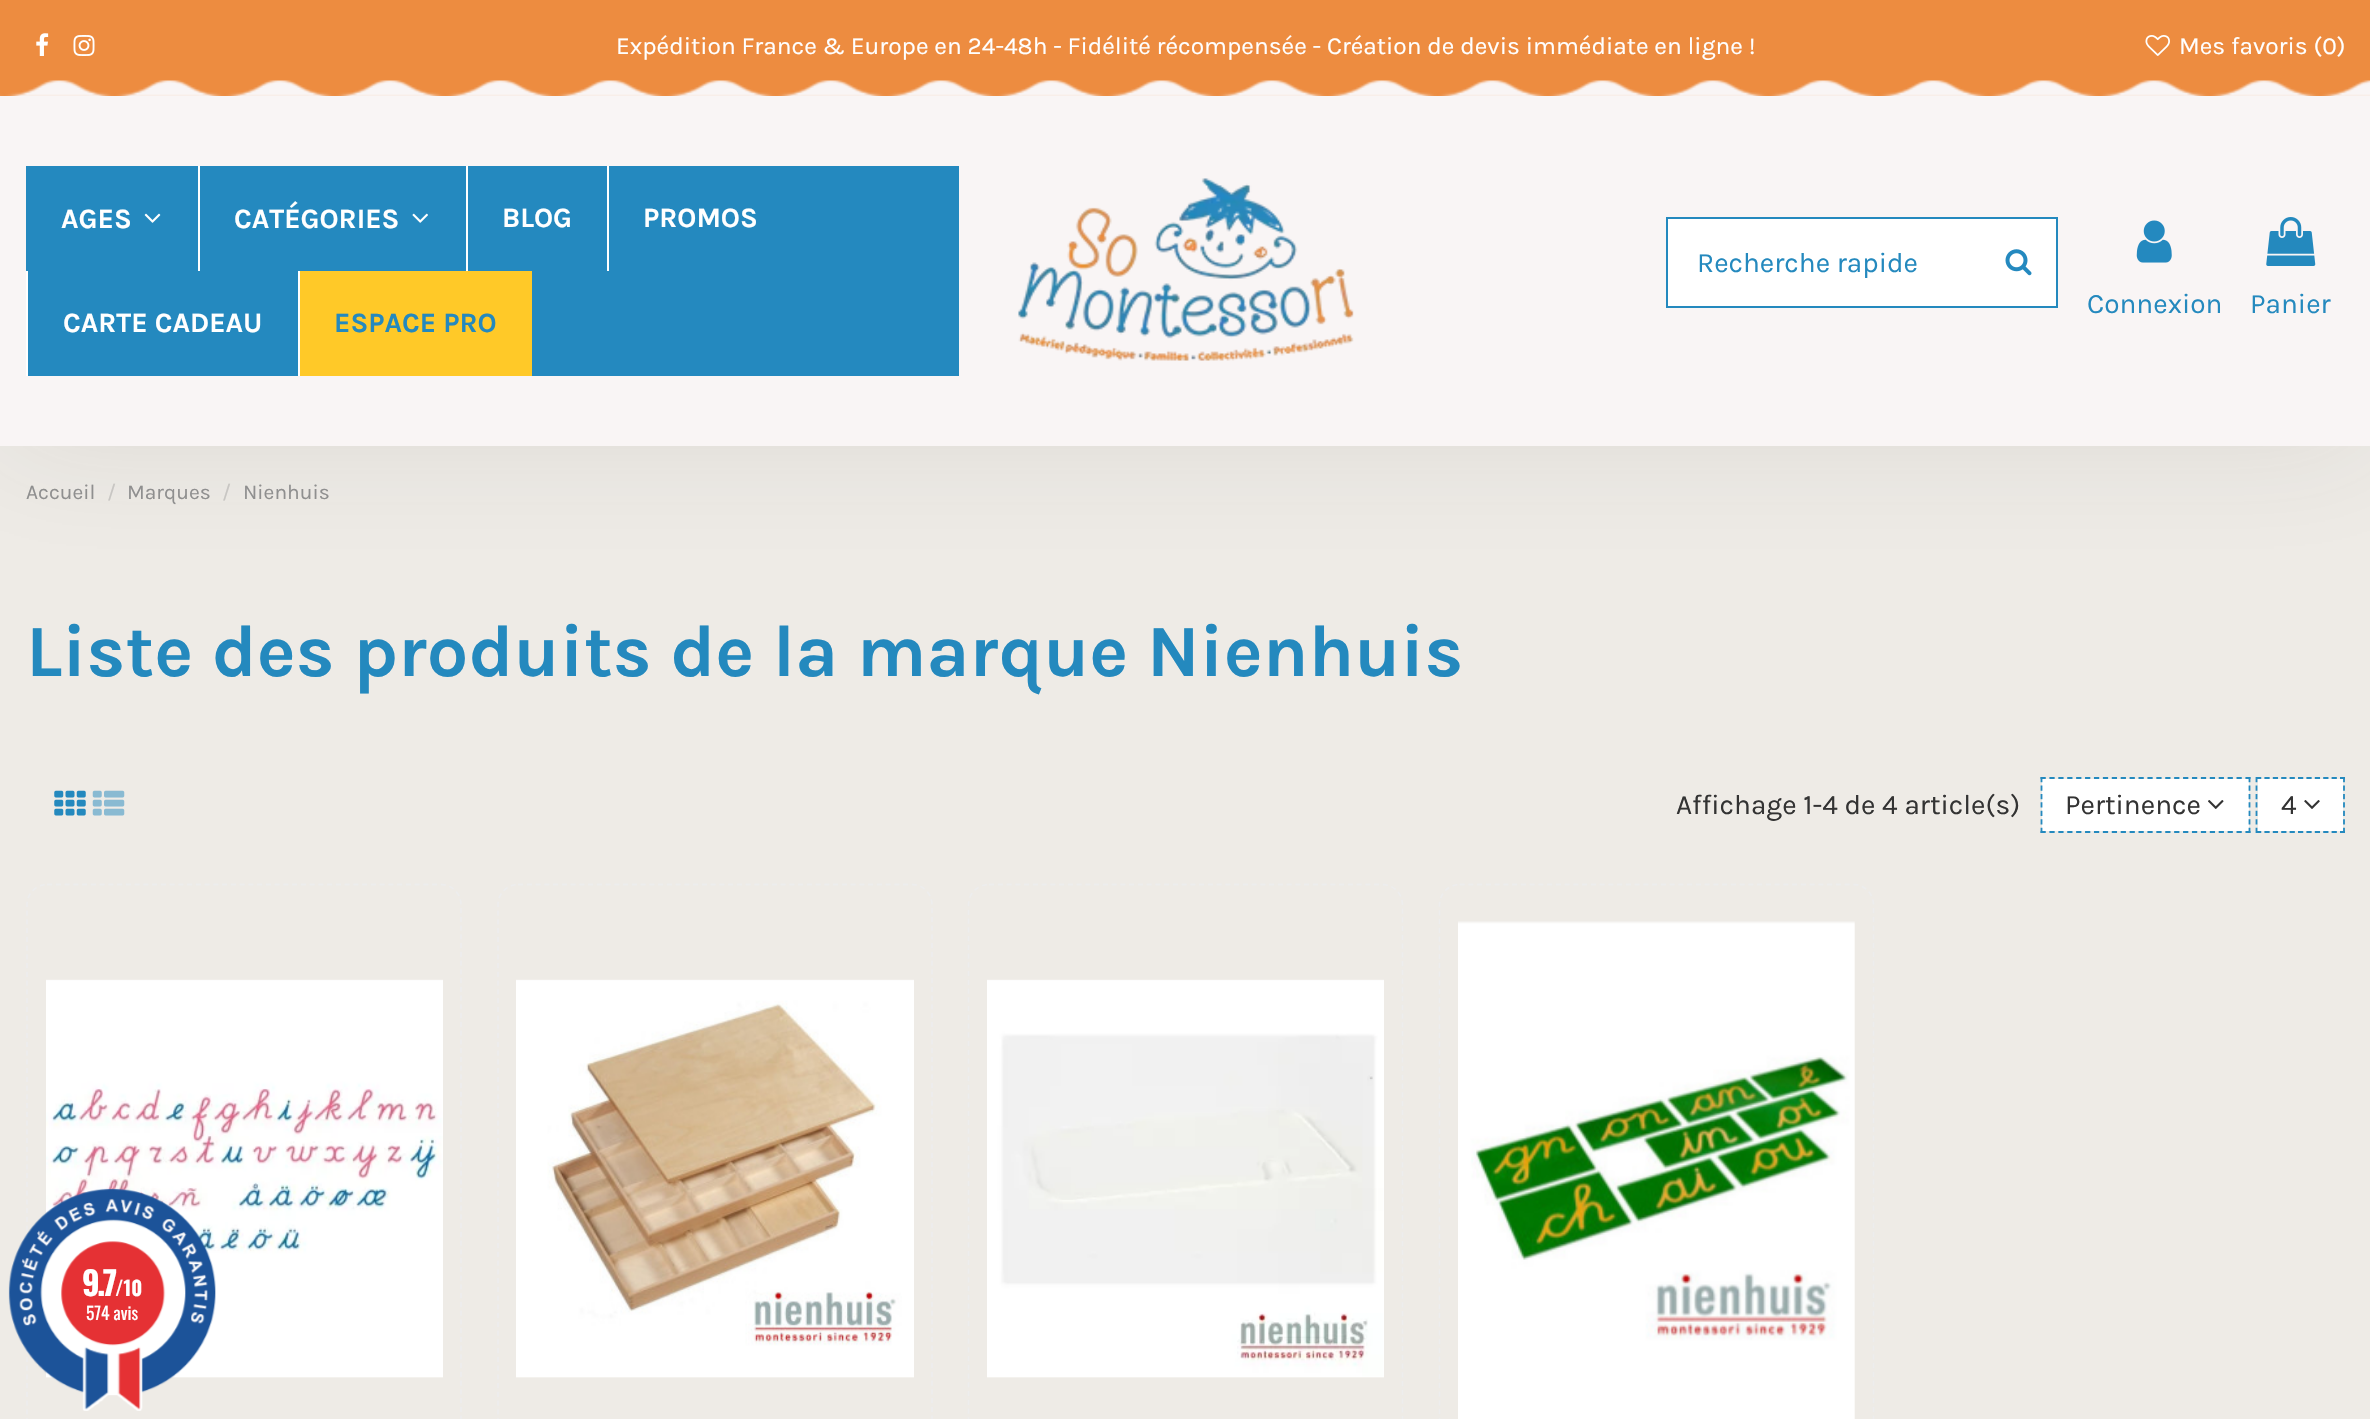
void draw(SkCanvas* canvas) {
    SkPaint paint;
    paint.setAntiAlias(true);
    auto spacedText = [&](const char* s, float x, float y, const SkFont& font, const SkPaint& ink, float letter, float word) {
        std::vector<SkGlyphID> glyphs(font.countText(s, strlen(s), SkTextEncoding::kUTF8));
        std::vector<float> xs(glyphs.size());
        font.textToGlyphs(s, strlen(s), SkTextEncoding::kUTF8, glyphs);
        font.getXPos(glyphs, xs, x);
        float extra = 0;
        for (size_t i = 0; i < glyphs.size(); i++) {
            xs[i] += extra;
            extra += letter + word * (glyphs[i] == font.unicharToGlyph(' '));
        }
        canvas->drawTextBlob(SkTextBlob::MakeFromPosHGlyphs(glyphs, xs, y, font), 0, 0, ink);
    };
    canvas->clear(0xFFEEEBE6);
    paint.setColor(0x1A3D3939);
    paint.setMaskFilter(SkMaskFilter::MakeBlur(kNormal_SkBlurStyle, 58.5f));
    canvas->drawRect(SkRect::MakeXYWH(0, -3, 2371, 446), paint);
    paint.setMaskFilter(nullptr);
    paint.setColor(0xFFF9F5F5);
    canvas->drawRect(SkRect::MakeXYWH(0, 96, 2370, 350), paint);
    paint.setColor(0xFFED8C40);
    canvas->drawRect(SkRect::MakeXYWH(0, 0, 2370, 96), paint);
    canvas->drawImageRect(SkImages::DeferredFromEncodedData(SkData::MakeFromFileName("img1.png")), SkRect::MakeXYWH(0, 80, 2370, 16), SkSamplingOptions());
    canvas->drawImageRect(SkImages::DeferredFromEncodedData(SkData::MakeFromFileName("img2.png")), SkRect::MakeXYWH(36, 33, 13, 23), SkSamplingOptions());
    canvas->drawImageRect(SkImages::DeferredFromEncodedData(SkData::MakeFromFileName("img3.png")), SkRect::MakeXYWH(73, 35, 22, 21), SkSamplingOptions());
    SkFont font1(fontMgr->matchFamilyStyle("Karla", SkFontStyle::Normal()), 24.5f);
    font1.setSubpixel(true);
    paint.setColor(0xFFFFFFFF);
    canvas->drawString("Expédition France & Europe en 24-48h - Fidélité récompensée - Création de devis immédiate en ligne !", 616, 54, font1, paint);
    canvas->drawImageRect(SkImages::DeferredFromEncodedData(SkData::MakeFromFileName("img4.png")), SkRect::MakeXYWH(2145, 35, 25, 21), SkSamplingOptions());
    canvas->drawString("Mes favoris (0)", 2179, 54, font1, paint);
    paint.setColor(0xFF2489BF);
    canvas->drawRect(SkRect::MakeXYWH(26, 166, 933, 210), paint);
    SkFont font2(fontMgr->matchFamilyStyle("Karla", SkFontStyle::Bold()), 28);
    font2.setSubpixel(true);
    paint.setColor(0xFFFFFFFF);
    canvas->drawString("AGES", 61, 228, font2, paint);
    canvas->drawImageRect(SkImages::DeferredFromEncodedData(SkData::MakeFromFileName("img5.png")), SkRect::MakeXYWH(144, 213, 17, 10), SkSamplingOptions());
    canvas->drawRect(SkRect::MakeXYWH(198, 166, 2, 105), paint);
    canvas->drawString("CATÉGORIES", 234, 228, font2, paint);
    canvas->drawImageRect(SkImages::DeferredFromEncodedData(SkData::MakeFromFileName("img6.png")), SkRect::MakeXYWH(412, 213, 16, 10), SkSamplingOptions());
    canvas->drawRect(SkRect::MakeXYWH(466, 166, 2, 105), paint);
    canvas->drawString("BLOG", 502, 227, font2, paint);
    canvas->drawRect(SkRect::MakeXYWH(607, 166, 2, 105), paint);
    canvas->drawString("PROMOS", 643, 227, font2, paint);
    canvas->drawRect(SkRect::MakeXYWH(26, 271, 2, 105), paint);
    canvas->drawString("CARTE CADEAU", 63, 332, font2, paint);
    paint.setColor(0xFFFFC928);
    canvas->drawRect(SkRect::MakeXYWH(300, 271, 232, 105), paint);
    paint.setColor(0xFFFFFFFF);
    canvas->drawRect(SkRect::MakeXYWH(298, 271, 2, 105), paint);
    paint.setColor(0xFF2489BE);
    canvas->drawString("ESPACE PRO", 334, 332, font2, paint);
    canvas->drawImageRect(SkImages::DeferredFromEncodedData(SkData::MakeFromFileName("img7.png")), SkRect::MakeXYWH(1018, 178, 336, 183), SkSamplingOptions());
    paint.setColor(0xFFFFFFFF);
    canvas->drawRect(SkRect::MakeXYWH(1667, 218, 390, 89), paint);
    paint.setStyle(SkPaint::kStroke_Style);
    paint.setStrokeWidth(2);
    paint.setColor(0xFF2489BE);
    canvas->drawRect(SkRect::MakeXYWH(1667, 218, 390, 89), paint);
    canvas->save();
    canvas->clipRect(SkRect::MakeXYWH(1696, 245, 304, 33));
    SkFont font3(fontMgr->matchFamilyStyle("Karla", SkFontStyle::Normal()), 28);
    font3.setSubpixel(true);
    paint.setStyle(SkPaint::kFill_Style);
    canvas->drawString("Recherche rapide", 1697, 272, font3, paint);
    canvas->restore();
    canvas->drawImageRect(SkImages::DeferredFromEncodedData(SkData::MakeFromFileName("img8.png")), SkRect::MakeXYWH(2005, 249, 27, 27), SkSamplingOptions());
    canvas->drawImageRect(SkImages::DeferredFromEncodedData(SkData::MakeFromFileName("img9.png")), SkRect::MakeXYWH(2136, 220, 36, 43), SkSamplingOptions());
    canvas->drawString("Connexion", 2087, 313, font3, paint);
    canvas->drawImageRect(SkImages::DeferredFromEncodedData(SkData::MakeFromFileName("img10.png")), SkRect::MakeXYWH(2266, 217, 50, 49), SkSamplingOptions());
    canvas->drawString("Panier", 2250, 313, font3, paint);
    SkFont font4(fontMgr->matchFamilyStyle("Karla", SkFontStyle::Normal()), 21);
    font4.setSubpixel(true);
    paint.setColor(0xFF8F8F8F);
    canvas->drawString("Accueil", 26, 499, font4, paint);
    paint.setColor(0xFFC8C6C3);
    canvas->drawString("/", 107, 499, font4, paint);
    paint.setColor(0xFF8F8F8F);
    canvas->drawString("Marques", 127, 499, font4, paint);
    paint.setColor(0xFFC8C6C3);
    canvas->drawString("/", 222, 499, font4, paint);
    paint.setColor(0xFF8F8F8F);
    canvas->drawString("Nienhuis", 243, 499, font4, paint);
    SkFont font5(fontMgr->matchFamilyStyle("Karla", SkFontStyle::Bold()), 73.5f);
    font5.setSubpixel(true);
    paint.setColor(0xFF2489BE);
    canvas->drawString("Liste des produits de la marque Nienhuis", 26, 676, font5, paint);
    canvas->drawImageRect(SkImages::DeferredFromEncodedData(SkData::MakeFromFileName("img11.png")), SkRect::MakeXYWH(54, 790, 32, 26), SkSamplingOptions());
    canvas->drawImageRect(SkImages::DeferredFromEncodedData(SkData::MakeFromFileName("img12.png")), SkRect::MakeXYWH(92, 790, 33, 26), SkSamplingOptions());
    paint.setColor(0xFF333333);
    canvas->drawString("Affichage 1-4 de 4 article(s)", 1676, 814, font3, paint);
    paint.setColor(0xFFFFFFFF);
    canvas->drawRect(SkRect::MakeXYWH(2042, 779, 207, 52), paint);
    paint.setStyle(SkPaint::kStroke_Style);
    paint.setStrokeWidth(1.8f);
    paint.setColor(0xFF2489BE);
    paint.setPathEffect(SkDashPathEffect::Make({{5.25f, 3.66f}}, 0));
    canvas->drawPath(SkPathBuilder().moveTo(2040.5f, 778).lineTo(2250.5f, 778).detach(), paint);
    paint.setPathEffect(nullptr);
    paint.setPathEffect(SkDashPathEffect::Make({{5.25f, 3.2f}}, 0));
    canvas->drawPath(SkPathBuilder().moveTo(2249.5f, 777).lineTo(2249.5f, 833).detach(), paint);
    paint.setPathEffect(nullptr);
    paint.setPathEffect(SkDashPathEffect::Make({{5.25f, 3.66f}}, 0));
    canvas->drawPath(SkPathBuilder().moveTo(2040.5f, 832).lineTo(2250.5f, 832).detach(), paint);
    paint.setPathEffect(nullptr);
    paint.setPathEffect(SkDashPathEffect::Make({{5.25f, 3.2f}}, 0));
    canvas->drawPath(SkPathBuilder().moveTo(2041.5f, 777).lineTo(2041.5f, 833).detach(), paint);
    paint.setPathEffect(nullptr);
    paint.setStyle(SkPaint::kFill_Style);
    paint.setColor(0xFF333333);
    canvas->drawString("Pertinence", 2065, 814, font3, paint);
    canvas->drawImageRect(SkImages::DeferredFromEncodedData(SkData::MakeFromFileName("img13.png")), SkRect::MakeXYWH(2208, 800, 16, 9), SkSamplingOptions());
    paint.setColor(0xFFFFFFFF);
    canvas->drawRect(SkRect::MakeXYWH(2258, 779, 85, 52), paint);
    paint.setStyle(SkPaint::kStroke_Style);
    paint.setColor(0xFF2489BE);
    paint.setPathEffect(SkDashPathEffect::Make({{5.25f, 3.15f}}, 0));
    canvas->drawPath(SkPathBuilder().moveTo(2256, 778).lineTo(2345, 778).detach(), paint);
    paint.setPathEffect(nullptr);
    paint.setPathEffect(SkDashPathEffect::Make({{5.25f, 3.2f}}, 0));
    canvas->drawPath(SkPathBuilder().moveTo(2344, 777).lineTo(2344, 833).detach(), paint);
    paint.setPathEffect(nullptr);
    paint.setPathEffect(SkDashPathEffect::Make({{5.25f, 3.15f}}, 0));
    canvas->drawPath(SkPathBuilder().moveTo(2256, 832).lineTo(2345, 832).detach(), paint);
    paint.setPathEffect(nullptr);
    paint.setPathEffect(SkDashPathEffect::Make({{5.25f, 3.2f}}, 0));
    canvas->drawPath(SkPathBuilder().moveTo(2256.5f, 777).lineTo(2256.5f, 833).detach(), paint);
    paint.setPathEffect(nullptr);
    paint.setStyle(SkPaint::kFill_Style);
    paint.setColor(0xFF333333);
    canvas->drawString("4", 2281, 814, font3, paint);
    canvas->drawImageRect(SkImages::DeferredFromEncodedData(SkData::MakeFromFileName("img14.png")), SkRect::MakeXYWH(2304, 800, 16, 9), SkSamplingOptions());
    paint.setStyle(SkPaint::kStroke_Style);
    paint.setColor(0xFFEDEDED);
    paint.setPathEffect(SkDashPathEffect::Make({{5.25f, 3.5f}}, 0));
    canvas->drawPath(SkPathBuilder().moveTo(47, 884.5f).lineTo(441, 884.5f).cubicTo(452, 884.5f, 461, 893.5f, 461, 905).lineTo(461, 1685).cubicTo(461, 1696.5f, 452, 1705.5f, 441, 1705.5f).lineTo(47, 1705.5f).cubicTo(36, 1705.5f, 27, 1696.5f, 27, 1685).lineTo(27, 905).cubicTo(27, 893.5f, 36, 884.5f, 47, 884.5f).close().detach(), paint);
    paint.setPathEffect(nullptr);
    canvas->drawImageRect(SkImages::DeferredFromEncodedData(SkData::MakeFromFileName("img15.png")), SkRect::MakeXYWH(46, 979, 397, 399), SkSamplingOptions());
    paint.setPathEffect(SkDashPathEffect::Make({{5.25f, 3.5f}}, 0));
    canvas->drawPath(SkPathBuilder().moveTo(518, 884.5f).lineTo(912, 884.5f).cubicTo(923, 884.5f, 932, 893.5f, 932, 905).lineTo(932, 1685).cubicTo(932, 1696.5f, 923, 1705.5f, 912, 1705.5f).lineTo(518, 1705.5f).cubicTo(507, 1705.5f, 498, 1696.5f, 498, 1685).lineTo(498, 905).cubicTo(498, 893.5f, 507, 884.5f, 518, 884.5f).close().detach(), paint);
    paint.setPathEffect(nullptr);
    canvas->drawImageRect(SkImages::DeferredFromEncodedData(SkData::MakeFromFileName("img16.png")), SkRect::MakeXYWH(516, 979, 398, 399), SkSamplingOptions());
    paint.setPathEffect(SkDashPathEffect::Make({{5.25f, 3.5f}}, 0));
    canvas->drawPath(SkPathBuilder().moveTo(989, 884.5f).lineTo(1382.5f, 884.5f).cubicTo(1393.5f, 884.5f, 1402.5f, 893.5f, 1402.5f, 905).lineTo(1402.5f, 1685).cubicTo(1402.5f, 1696.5f, 1393.5f, 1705.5f, 1382.5f, 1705.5f).lineTo(989, 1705.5f).cubicTo(977.5f, 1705.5f, 968.5f, 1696.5f, 968.5f, 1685).lineTo(968.5f, 905).cubicTo(968.5f, 893.5f, 977.5f, 884.5f, 989, 884.5f).close().detach(), paint);
    paint.setPathEffect(nullptr);
    canvas->drawImageRect(SkImages::DeferredFromEncodedData(SkData::MakeFromFileName("img17.png")), SkRect::MakeXYWH(987, 979, 397, 399), SkSamplingOptions());
    paint.setPathEffect(SkDashPathEffect::Make({{5.25f, 3.5f}}, 0));
    canvas->drawPath(SkPathBuilder().moveTo(1459.5f, 884.5f).lineTo(1853, 884.5f).cubicTo(1864.5f, 884.5f, 1873.5f, 893.5f, 1873.5f, 905).lineTo(1873.5f, 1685).cubicTo(1873.5f, 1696.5f, 1864.5f, 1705.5f, 1853, 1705.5f).lineTo(1459.5f, 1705.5f).cubicTo(1448.5f, 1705.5f, 1439.5f, 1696.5f, 1439.5f, 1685).lineTo(1439.5f, 905).cubicTo(1439.5f, 893.5f, 1448.5f, 884.5f, 1459.5f, 884.5f).close().detach(), paint);
    paint.setPathEffect(nullptr);
    canvas->drawImageRect(SkImages::DeferredFromEncodedData(SkData::MakeFromFileName("img18.png")), SkRect::MakeXYWH(1458, 921, 397, 498), SkSamplingOptions());
    canvas->drawImageRect(SkImages::DeferredFromEncodedData(SkData::MakeFromFileName("img19.png")), SkRect::MakeXYWH(8, 1188, 208, 223), SkSamplingOptions());
    SkFont font6(fontMgr->matchFamilyStyle("Oswald", SkFontStyle::Bold()), 33);
    font6.setSubpixel(true);
    paint.setStyle(SkPaint::kFill_Style);
    paint.setColor(0xFFFFFFFF);
    spacedText("9.7", 82, 1296, font6, paint, -2.5f, 0);
    SkFont font7(fontMgr->matchFamilyStyle("Oswald", SkFontStyle::Bold()), 20);
    font7.setSubpixel(true);
    canvas->drawString("/10", 115, 1296, font7, paint);
    SkFont font8(fontMgr->matchFamilyStyle("Oswald", SkFontStyle::Normal()), 17.5f);
    font8.setSubpixel(true);
    canvas->drawString("574 avis", 86, 1320, font8, paint);
}
